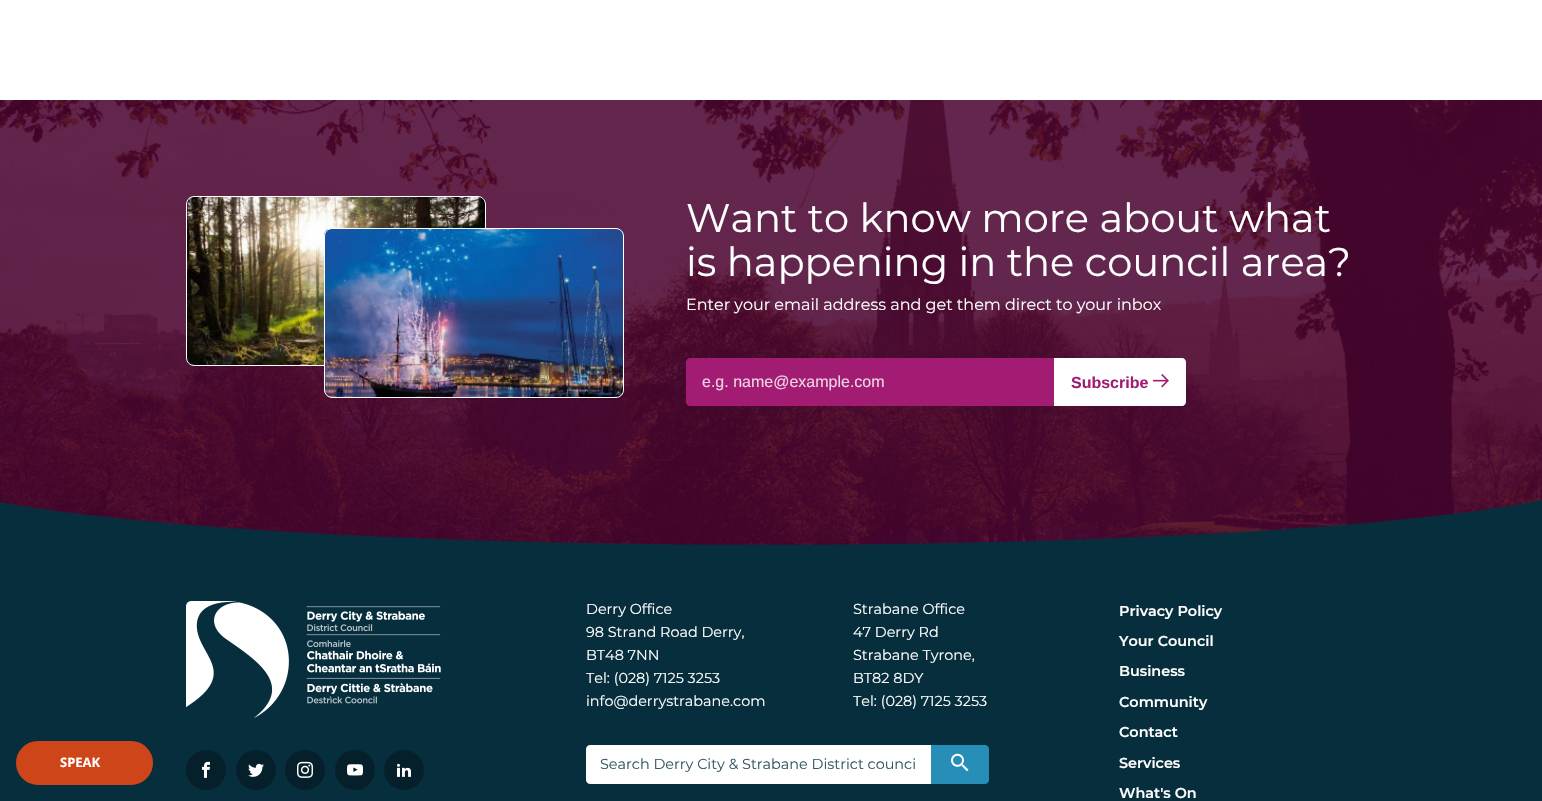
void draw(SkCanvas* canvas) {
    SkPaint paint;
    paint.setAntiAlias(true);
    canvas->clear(0xFFFFFFFF);
    paint.setColor(0xFF470130);
    canvas->drawRect(SkRect::MakeXYWH(0, 100, 1542, 446), paint);
    canvas->drawImageRect(SkImages::DeferredFromEncodedData(SkData::MakeFromFileName("img1.png")), SkRect::MakeXYWH(0, 100, 1542, 446), SkSamplingOptions());
    canvas->drawImageRect(SkImages::DeferredFromEncodedData(SkData::MakeFromFileName("img2.png")), SkRect::MakeXYWH(186, 197, 300, 168), SkSamplingOptions());
    paint.setStyle(SkPaint::kStroke_Style);
    paint.setStrokeWidth(1);
    paint.setColor(0xFFFFFFFF);
    canvas->drawRoundRect(SkRect::MakeXYWH(186.5f, 196.5f, 299, 169), 7.5f, 7.5f, paint);
    canvas->drawImageRect(SkImages::DeferredFromEncodedData(SkData::MakeFromFileName("img3.png")), SkRect::MakeXYWH(324, 229, 300, 168), SkSamplingOptions());
    canvas->drawRoundRect(SkRect::MakeXYWH(324.5f, 228.5f, 299, 169), 7.5f, 7.5f, paint);
    SkFont font1(fontMgr->matchFamilyStyle("Montserrat", SkFontStyle::Normal()), 40);
    font1.setSubpixel(true);
    paint.setStyle(SkPaint::kFill_Style);
    canvas->drawString("Want to know more about what", 686, 232, font1, paint);
    canvas->drawString("is happening in the council area?", 686, 276, font1, paint);
    SkFont font2(fontMgr->matchFamilyStyle("Montserrat", SkFontStyle::Normal()), 16);
    font2.setSubpixel(true);
    canvas->drawString("Enter your email address and get them direct to your inbox", 686, 310, font2, paint);
    paint.setColor(0xFFA11C72);
    canvas->drawPath(SkPathBuilder().moveTo(690, 358).lineTo(1054, 358).lineTo(1054, 406).lineTo(690, 406).cubicTo(688, 406, 686, 404, 686, 402).lineTo(686, 362).cubicTo(686, 360, 688, 358, 690, 358).close().detach(), paint);
    SkFont font3(fontMgr->matchFamilyStyle("Liberation Sans", SkFontStyle::Normal()), 16);
    font3.setSubpixel(true);
    paint.setColor(0xFFECD2E3);
    canvas->drawString("e.g. name@example.com", 702, 387, font3, paint);
    paint.setColor(0xFFFFFFFF);
    canvas->drawPath(SkPathBuilder().moveTo(1054, 358).lineTo(1182, 358).cubicTo(1184, 358, 1186, 360, 1186, 362).lineTo(1186, 402).cubicTo(1186, 404, 1184, 406, 1182, 406).lineTo(1054, 406).close().detach(), paint);
    SkFont font4(fontMgr->matchFamilyStyle("Liberation Sans", SkFontStyle::Bold()), 16);
    font4.setSubpixel(true);
    paint.setColor(0xFFA11C72);
    canvas->drawString("Subscribe", 1071, 388, font4, paint);
    canvas->drawImageRect(SkImages::DeferredFromEncodedData(SkData::MakeFromFileName("img4.png")), SkRect::MakeXYWH(1153, 374, 16, 14), SkSamplingOptions());
    paint.setColor(0xFF072E3D);
    canvas->drawRect(SkRect::MakeXYWH(0, 550, 1542, 251), paint);
    paint.setColor(0xFFCD4518);
    canvas->drawRoundRect(SkRect::MakeXYWH(17, 742, 135, 42), 21, 21, paint);
    paint.setStyle(SkPaint::kStroke_Style);
    paint.setStrokeWidth(2);
    canvas->drawRoundRect(SkRect::MakeXYWH(17, 742, 135, 42), 21, 21, paint);
    SkFont font5(fontMgr->matchFamilyStyle("Open Sans", SkFontStyle::Bold()), 13);
    font5.setSubpixel(true);
    paint.setStyle(SkPaint::kFill_Style);
    paint.setColor(0xFFFFFFFF);
    canvas->drawString("SPEAK", 60, 767, font5, paint);
    canvas->drawImageRect(SkImages::DeferredFromEncodedData(SkData::MakeFromFileName("img5.png")), SkRect::MakeXYWH(0, 500, 1542, 50), SkSamplingOptions());
    canvas->drawImageRect(SkImages::DeferredFromEncodedData(SkData::MakeFromFileName("img6.png")), SkRect::MakeXYWH(186, 601, 255, 117), SkSamplingOptions());
    paint.setColor(0xFF051F2B);
    canvas->drawCircle(206, 770, 20, paint);
    canvas->drawImageRect(SkImages::DeferredFromEncodedData(SkData::MakeFromFileName("img7.png")), SkRect::MakeXYWH(202, 761, 8, 17), SkSamplingOptions());
    canvas->drawCircle(256, 770, 20, paint);
    canvas->drawImageRect(SkImages::DeferredFromEncodedData(SkData::MakeFromFileName("img8.png")), SkRect::MakeXYWH(248, 763, 16, 14), SkSamplingOptions());
    canvas->drawCircle(305, 770, 20, paint);
    canvas->drawImageRect(SkImages::DeferredFromEncodedData(SkData::MakeFromFileName("img9.png")), SkRect::MakeXYWH(297, 761, 16, 17), SkSamplingOptions());
    canvas->drawCircle(355, 770, 20, paint);
    canvas->drawImageRect(SkImages::DeferredFromEncodedData(SkData::MakeFromFileName("img10.png")), SkRect::MakeXYWH(347, 764, 16, 12), SkSamplingOptions());
    canvas->drawCircle(404, 770, 20, paint);
    canvas->drawImageRect(SkImages::DeferredFromEncodedData(SkData::MakeFromFileName("img11.png")), SkRect::MakeXYWH(397, 763, 14, 14), SkSamplingOptions());
    SkFont font6(fontMgr->matchFamilyStyle("Montserrat", SkFontStyle::Normal()), 14.4f);
    font6.setSubpixel(true);
    paint.setColor(0xFFFFFFFF);
    canvas->drawString("Derry Office", 586, 614, font6, paint);
    canvas->drawString("98 Strand Road Derry,", 586, 637, font6, paint);
    canvas->drawString("BT48 7NN", 586, 660, font6, paint);
    canvas->drawString("Tel: (028) 7125 3253", 586, 683, font6, paint);
    canvas->drawString("info@derrystrabane.com", 586, 706, font6, paint);
    canvas->drawString("Strabane Office", 853, 614, font6, paint);
    canvas->drawString("47 Derry Rd", 853, 637, font6, paint);
    canvas->drawString("Strabane Tyrone,", 853, 660, font6, paint);
    canvas->drawString("BT82 8DY", 853, 683, font6, paint);
    canvas->drawString("Tel: (028) 7125 3253", 853, 706, font6, paint);
    canvas->drawPath(SkPathBuilder().moveTo(590, 745).lineTo(931, 745).lineTo(931, 784).lineTo(590, 784).cubicTo(588, 784, 586, 782, 586, 780).lineTo(586, 749).cubicTo(586, 747, 588, 745, 590, 745).close().detach(), paint);
    paint.setColor(0xFF335865);
    canvas->drawString("Search Derry City & Strabane District counci", 600, 769, font6, paint);
    paint.setColor(0xFF278FB7);
    canvas->drawPath(SkPathBuilder().moveTo(931, 745).lineTo(985, 745).cubicTo(987, 745, 989, 747, 989, 749).lineTo(989, 780).cubicTo(989, 782, 987, 784, 985, 784).lineTo(931, 784).close().detach(), paint);
    canvas->drawImageRect(SkImages::DeferredFromEncodedData(SkData::MakeFromFileName("img12.png")), SkRect::MakeXYWH(951, 753, 18, 19), SkSamplingOptions());
    SkFont font7(fontMgr->matchFamilyStyle("Montserrat", SkFontStyle(600, SkFontStyle::kNormal_Width, SkFontStyle::kUpright_Slant)), 14.4f);
    font7.setSubpixel(true);
    paint.setColor(0xFFFFFFFF);
    canvas->drawString("Privacy Policy", 1119, 616, font7, paint);
    canvas->drawString("Your Council", 1119, 646, font7, paint);
    canvas->drawString("Business", 1119, 676, font7, paint);
    canvas->drawString("Community", 1119, 707, font7, paint);
    canvas->drawString("Contact", 1119, 737, font7, paint);
    canvas->drawString("Services", 1119, 768, font7, paint);
    canvas->drawString("What's On", 1119, 798, font7, paint);
}
